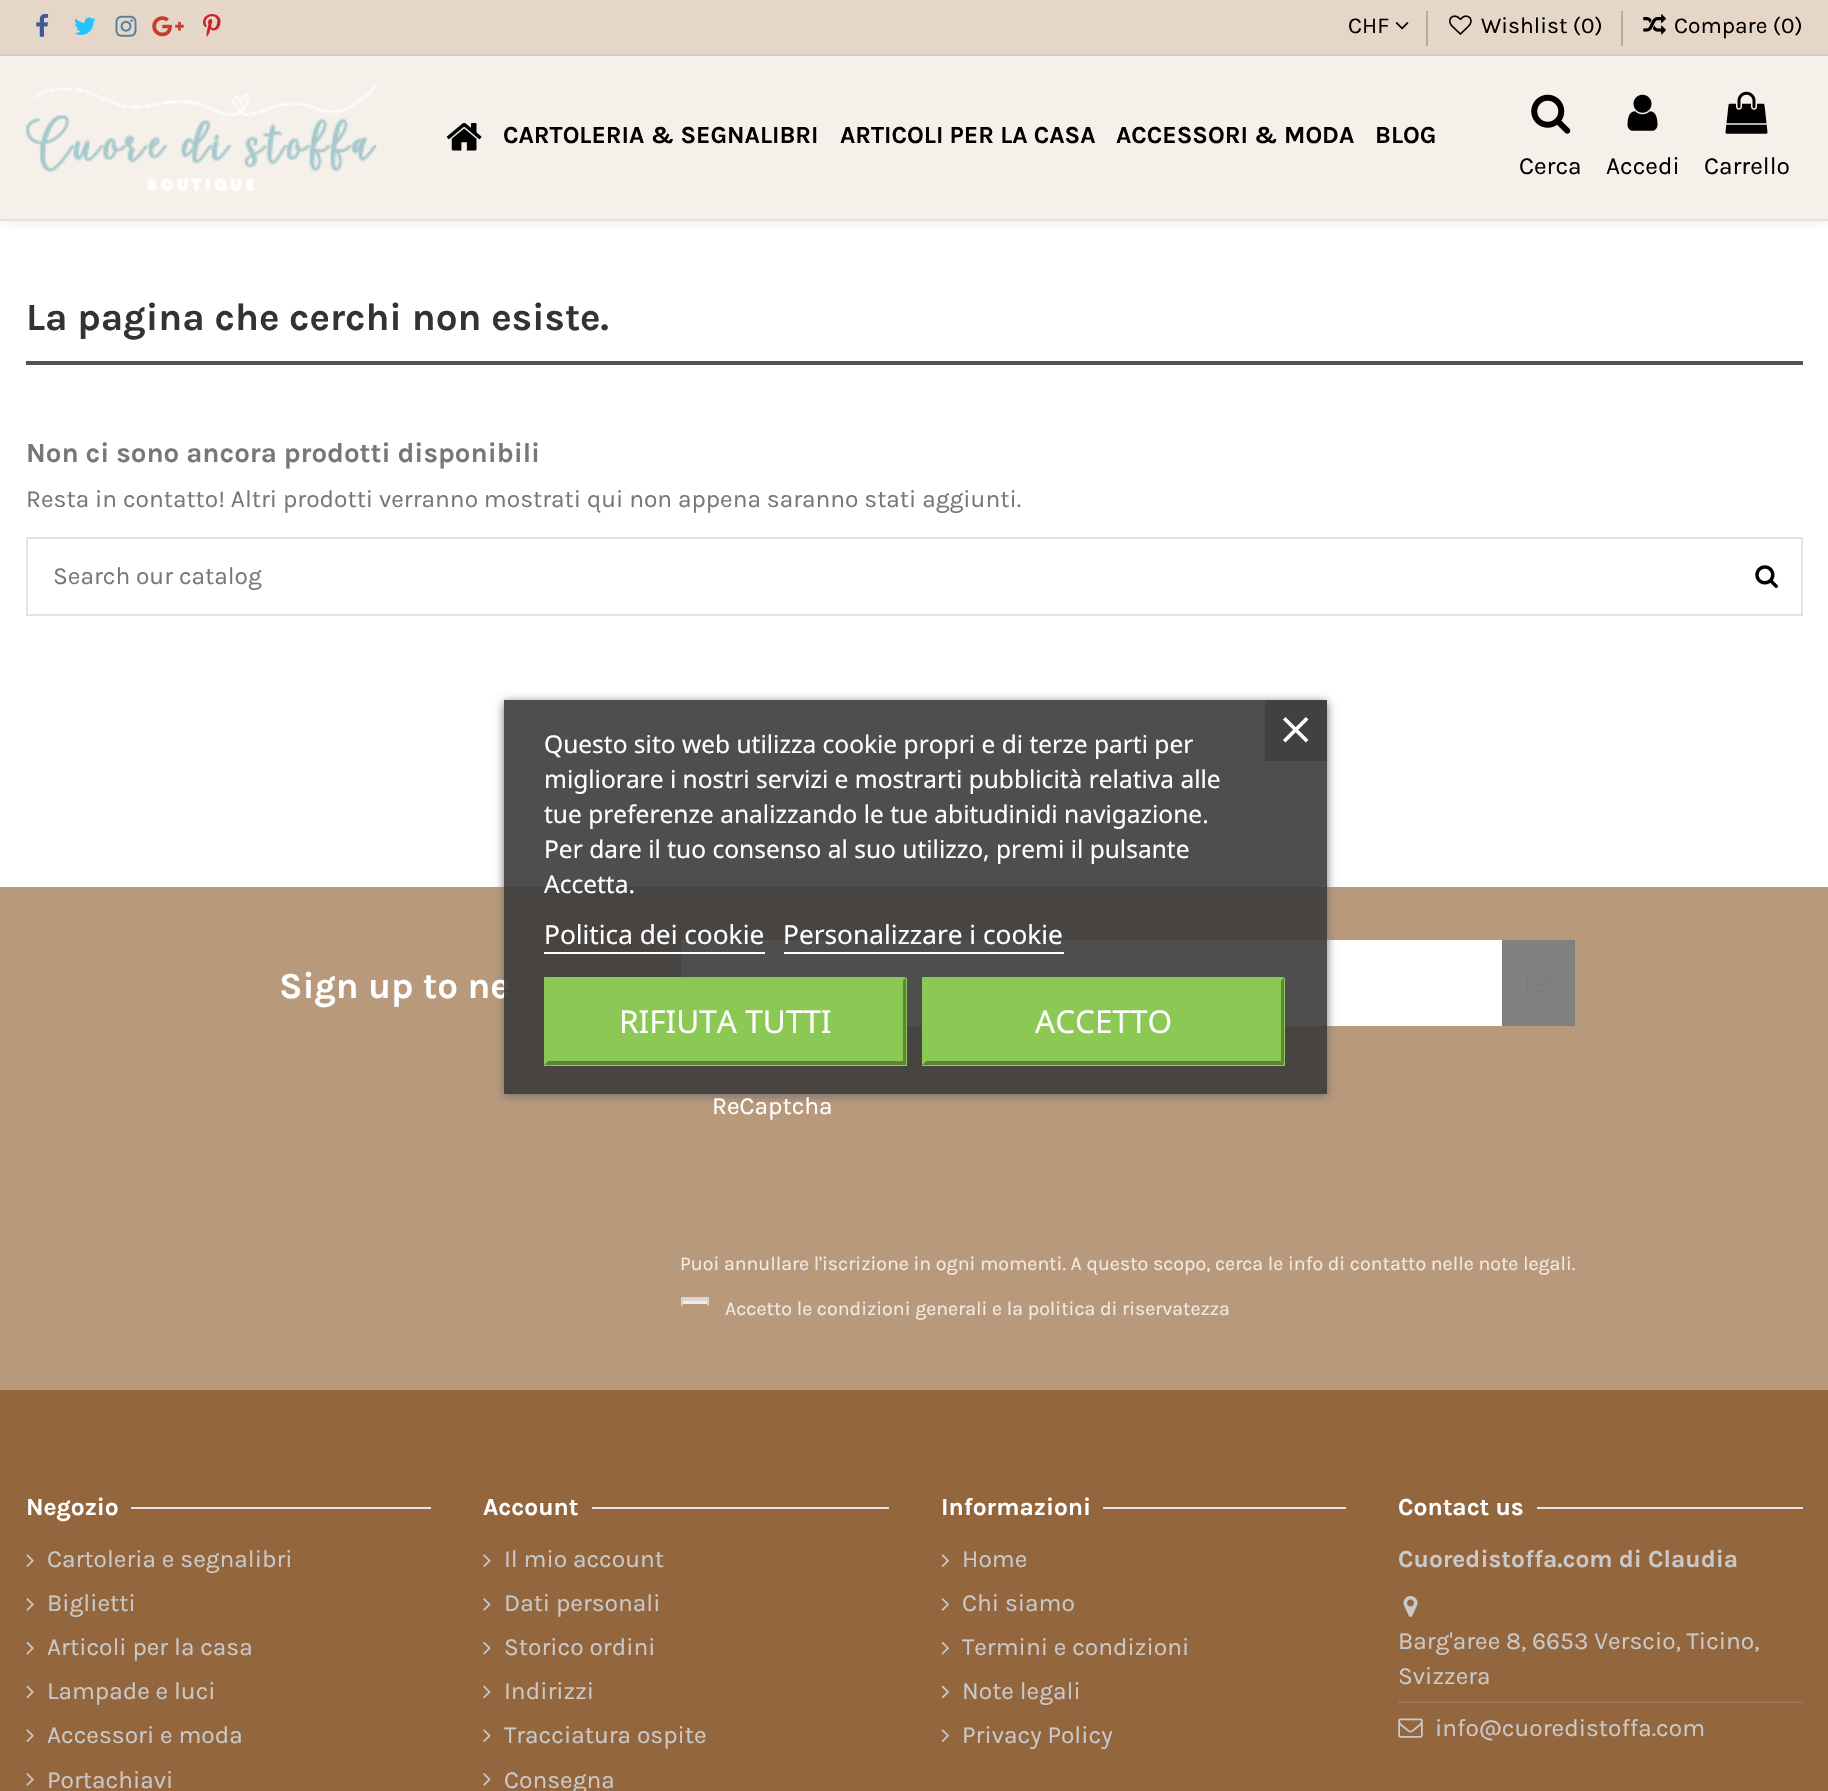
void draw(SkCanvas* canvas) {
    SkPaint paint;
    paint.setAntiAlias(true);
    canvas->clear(0xFFFFFFFF);
    canvas->save();
    canvas->clipRect(SkRect::MakeXYWH(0, 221, 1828, 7));
    paint.setColor(0x2B3D3939);
    paint.setMaskFilter(SkMaskFilter::MakeBlur(kNormal_SkBlurStyle, 9.5f));
    canvas->drawRect(SkRect::MakeXYWH(0, -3, 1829, 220), paint);
    paint.setMaskFilter(nullptr);
    canvas->restore();
    paint.setColor(0x42DBC5B2);
    canvas->drawRect(SkRect::MakeXYWH(0, 56, 1828, 163), paint);
    paint.setColor(0xFFE3E3E3);
    canvas->drawRect(SkRect::MakeXYWH(0, 219, 1828, 2), paint);
    paint.setColor(0xFFE5D6C8);
    canvas->drawRect(SkRect::MakeXYWH(0, 0, 1828, 54), paint);
    paint.setColor(0xFFCFCFCF);
    canvas->drawRect(SkRect::MakeXYWH(0, 54, 1828, 2), paint);
    canvas->drawImageRect(SkImages::DeferredFromEncodedData(SkData::MakeFromFileName("img1.png")), SkRect::MakeXYWH(36, 14, 13, 23), SkSamplingOptions());
    canvas->drawImageRect(SkImages::DeferredFromEncodedData(SkData::MakeFromFileName("img2.png")), SkRect::MakeXYWH(74, 17, 22, 18), SkSamplingOptions());
    canvas->drawImageRect(SkImages::DeferredFromEncodedData(SkData::MakeFromFileName("img3.png")), SkRect::MakeXYWH(115, 15, 22, 22), SkSamplingOptions());
    canvas->drawImageRect(SkImages::DeferredFromEncodedData(SkData::MakeFromFileName("img4.png")), SkRect::MakeXYWH(152, 16, 32, 21), SkSamplingOptions());
    canvas->drawImageRect(SkImages::DeferredFromEncodedData(SkData::MakeFromFileName("img5.png")), SkRect::MakeXYWH(203, 14, 18, 23), SkSamplingOptions());
    SkFont font1(fontMgr->matchFamilyStyle("Karla", SkFontStyle::Normal()), 22.75f);
    font1.setSubpixel(true);
    paint.setColor(0xFF000000);
    canvas->drawString("CHF", 1348, 33, font1, paint);
    canvas->drawImageRect(SkImages::DeferredFromEncodedData(SkData::MakeFromFileName("img6.png")), SkRect::MakeXYWH(1395, 22, 14, 8), SkSamplingOptions());
    paint.setColor(0xFFB7ABA0);
    canvas->drawRect(SkRect::MakeXYWH(1426, 11, 2, 35), paint);
    canvas->drawImageRect(SkImages::DeferredFromEncodedData(SkData::MakeFromFileName("img7.png")), SkRect::MakeXYWH(1449, 15, 23, 20), SkSamplingOptions());
    paint.setColor(0xFF000000);
    canvas->drawString("Wishlist (0)", 1481, 33, font1, paint);
    paint.setColor(0xFFB7ABA0);
    canvas->drawRect(SkRect::MakeXYWH(1621, 11, 2, 35), paint);
    canvas->drawImageRect(SkImages::DeferredFromEncodedData(SkData::MakeFromFileName("img8.png")), SkRect::MakeXYWH(1643, 14, 23, 21), SkSamplingOptions());
    paint.setColor(0xFF000000);
    canvas->drawString("Compare (0)", 1674, 33, font1, paint);
    canvas->drawImageRect(SkImages::DeferredFromEncodedData(SkData::MakeFromFileName("img9.png")), SkRect::MakeXYWH(26, 84, 351, 107), SkSamplingOptions());
    canvas->drawImageRect(SkImages::DeferredFromEncodedData(SkData::MakeFromFileName("img10.png")), SkRect::MakeXYWH(446, 123, 36, 28), SkSamplingOptions());
    SkFont font2(fontMgr->matchFamilyStyle("Karla", SkFontStyle::Bold()), 24.5f);
    font2.setSubpixel(true);
    canvas->drawString("CARTOLERIA & SEGNALIBRI", 503, 143, font2, paint);
    canvas->drawString("ARTICOLI PER LA CASA", 840, 143, font2, paint);
    canvas->drawString("ACCESSORI & MODA", 1116, 143, font2, paint);
    canvas->drawString("BLOG", 1375, 143, font2, paint);
    canvas->drawImageRect(SkImages::DeferredFromEncodedData(SkData::MakeFromFileName("img11.png")), SkRect::MakeXYWH(1531, 94, 40, 40), SkSamplingOptions());
    SkFont font3(fontMgr->matchFamilyStyle("Karla", SkFontStyle::Normal()), 24.5f);
    font3.setSubpixel(true);
    canvas->drawString("Cerca", 1519, 174, font3, paint);
    canvas->drawImageRect(SkImages::DeferredFromEncodedData(SkData::MakeFromFileName("img12.png")), SkRect::MakeXYWH(1627, 94, 31, 37), SkSamplingOptions());
    canvas->drawString("Accedi", 1606, 174, font3, paint);
    canvas->drawImageRect(SkImages::DeferredFromEncodedData(SkData::MakeFromFileName("img13.png")), SkRect::MakeXYWH(1725, 91, 43, 43), SkSamplingOptions());
    canvas->drawString("Carrello", 1704, 174, font3, paint);
    paint.setColor(0xFFB9997B);
    canvas->drawRect(SkRect::MakeXYWH(0, 887, 1828, 503), paint);
    paint.setColor(0xFFFFFFFF);
    canvas->drawRect(SkRect::MakeXYWH(681, 940, 821, 86), paint);
    canvas->save();
    canvas->clipPath(SkPathBuilder(SkPathFillType::kEvenOdd).moveTo(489, 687).lineTo(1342, 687).lineTo(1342, 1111).lineTo(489, 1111).close().moveTo(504, 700).lineTo(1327, 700).lineTo(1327, 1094).lineTo(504, 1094).close().detach(), true);
    paint.setColor(0xFF707070);
    paint.setMaskFilter(SkMaskFilter::MakeBlur(kNormal_SkBlurStyle, 4.5f));
    canvas->drawRect(SkRect::MakeXYWH(504, 702, 823, 394), paint);
    paint.setMaskFilter(nullptr);
    canvas->restore();
    SkFont font4(fontMgr->matchFamilyStyle("Karla", SkFontStyle::Bold()), 36.75f);
    font4.setSubpixel(true);
    paint.setColor(0xFFFFFFFF);
    canvas->drawString("Sign up to ne", 279, 998, font4, paint);
    paint.setColor(0xE63B3B3B);
    canvas->drawRect(SkRect::MakeXYWH(504, 700, 823, 394), paint);
    SkFont font5(fontMgr->matchFamilyStyle("Noto Sans", SkFontStyle::Normal()), 24.5f);
    font5.setSubpixel(true);
    paint.setColor(0xFFFFFFFF);
    canvas->drawString("Questo sito web utilizza cookie propri e di terze parti per", 544, 753, font5, paint);
    canvas->drawString("migliorare i nostri servizi e mostrarti pubblicità relativa alle", 544, 788, font5, paint);
    canvas->drawString("tue preferenze analizzando le tue abitudinidi navigazione.", 544, 823, font5, paint);
    canvas->drawString("Per dare il tuo consenso al suo utilizzo, premi il pulsante", 544, 858, font5, paint);
    canvas->drawString("Accetta.", 544, 893, font5, paint);
    SkFont font6(fontMgr->matchFamilyStyle("Noto Sans", SkFontStyle::Normal()), 26.25f);
    font6.setSubpixel(true);
    canvas->drawString("Politica dei cookie", 544, 944, font6, paint);
    canvas->drawRect(SkRect::MakeXYWH(544, 952, 221, 2), paint);
    canvas->drawString("Personalizzare i cookie", 783, 944, font6, paint);
    canvas->drawRect(SkRect::MakeXYWH(784, 952, 280, 2), paint);
    paint.setColor(0xFF8BC954);
    canvas->drawRect(SkRect::MakeXYWH(544, 978, 363, 88), paint);
    canvas->drawPath(SkPathBuilder().moveTo(544, 977).lineTo(906, 977).lineTo(903, 981).lineTo(548, 981).close().detach(), paint);
    paint.setColor(0xFF5D8638);
    canvas->drawPath(SkPathBuilder().moveTo(906, 977).lineTo(906, 1065).lineTo(903, 1061).lineTo(903, 981).close().detach(), paint);
    canvas->drawPath(SkPathBuilder().moveTo(906, 1065).lineTo(544, 1065).lineTo(548, 1061).lineTo(903, 1061).close().detach(), paint);
    paint.setColor(0xFF8BC954);
    canvas->drawPath(SkPathBuilder().moveTo(544, 1065).lineTo(544, 977).lineTo(548, 981).lineTo(548, 1061).close().detach(), paint);
    SkFont font7(fontMgr->matchFamilyStyle("Noto Sans", SkFontStyle::Normal()), 31.5f);
    font7.setSubpixel(true);
    paint.setColor(0xFFFFFFFF);
    canvas->drawString("RIFIUTA TUTTI", 619, 1033, font7, paint);
    paint.setColor(0xFF8BC954);
    canvas->drawRect(SkRect::MakeXYWH(922, 978, 363, 88), paint);
    canvas->drawPath(SkPathBuilder().moveTo(922, 977).lineTo(1284, 977).lineTo(1281, 981).lineTo(926, 981).close().detach(), paint);
    paint.setColor(0xFF5D8638);
    canvas->drawPath(SkPathBuilder().moveTo(1284, 977).lineTo(1284, 1065).lineTo(1281, 1061).lineTo(1281, 981).close().detach(), paint);
    canvas->drawPath(SkPathBuilder().moveTo(1284, 1065).lineTo(922, 1065).lineTo(926, 1061).lineTo(1281, 1061).close().detach(), paint);
    paint.setColor(0xFF8BC954);
    canvas->drawPath(SkPathBuilder().moveTo(922, 1065).lineTo(922, 977).lineTo(926, 981).lineTo(926, 1061).close().detach(), paint);
    paint.setColor(0xFFFFFFFF);
    canvas->drawString("ACCETTO", 1035, 1033, font7, paint);
    paint.setColor(0xB33B3B3B);
    canvas->drawRect(SkRect::MakeXYWH(1265, 700, 62, 61), paint);
    canvas->drawImageRect(SkImages::DeferredFromEncodedData(SkData::MakeFromFileName("img14.png")), SkRect::MakeXYWH(1283, 717, 26, 26), SkSamplingOptions());
    paint.setColor(0xFF595050);
    canvas->drawRect(SkRect::MakeXYWH(26, 361, 1777, 4), paint);
    SkFont font8(fontMgr->matchFamilyStyle("Karla", SkFontStyle::Bold()), 38.5f);
    font8.setSubpixel(true);
    paint.setColor(0xFF333333);
    canvas->drawString("La pagina che cerchi non esiste.", 26, 330, font8, paint);
    SkFont font9(fontMgr->matchFamilyStyle("Karla", SkFontStyle::Bold()), 27.6f);
    font9.setSubpixel(true);
    paint.setColor(0xFF777777);
    canvas->drawString("Non ci sono ancora prodotti disponibili", 26, 462, font9, paint);
    canvas->drawString("Resta in contatto! Altri prodotti verranno mostrati qui non appena saranno stati aggiunti.", 26, 507, font3, paint);
    paint.setStyle(SkPaint::kStroke_Style);
    paint.setStrokeWidth(2);
    paint.setColor(0xFFE3E3E3);
    canvas->drawRect(SkRect::MakeXYWH(27, 538, 1775, 77), paint);
    paint.setStyle(SkPaint::kFill_Style);
    paint.setColor(0xFF777777);
    canvas->drawString("Search our catalog", 53, 584, font3, paint);
    canvas->drawImageRect(SkImages::DeferredFromEncodedData(SkData::MakeFromFileName("img15.png")), SkRect::MakeXYWH(1755, 565, 23, 23), SkSamplingOptions());
    paint.setColor(0xFF94663D);
    canvas->drawRect(SkRect::MakeXYWH(0, 1390, 1828, 401), paint);
    paint.setColor(0xFF808080);
    canvas->drawRect(SkRect::MakeXYWH(1502, 940, 73, 86), paint);
    canvas->drawImageRect(SkImages::DeferredFromEncodedData(SkData::MakeFromFileName("img16.png")), SkRect::MakeXYWH(1526, 973, 24, 19), SkSamplingOptions());
    paint.setColor(0xFFFFFFFF);
    canvas->drawString("ReCaptcha", 712, 1114, font3, paint);
    SkFont font10(fontMgr->matchFamilyStyle("Karla", SkFontStyle::Normal()), 19.6f);
    font10.setSubpixel(true);
    paint.setColor(0xFFF1EBE5);
    canvas->drawString("Puoi annullare l'iscrizione in ogni momenti. A questo scopo, cerca le info di contatto nelle note legali.", 680, 1270, font10, paint);
    canvas->drawRect(SkRect::MakeXYWH(683, 1301, 24, 4), paint);
    paint.setColor(0xFFDFD9D3);
    canvas->drawRect(SkRect::MakeXYWH(683, 1299, 24, 2), paint);
    paint.setStyle(SkPaint::kStroke_Style);
    paint.setColor(0xFFDBD4CE);
    canvas->drawRect(SkRect::MakeXYWH(682, 1298, 26, 26), paint);
    paint.setStyle(SkPaint::kFill_Style);
    paint.setColor(0xFFF1EBE5);
    canvas->drawString("Accetto le condizioni generali e la politica di riservatezza", 725, 1315, font10, paint);
    paint.setColor(0xFFB9997B);
    canvas->drawRoundRect(SkRect::MakeXYWH(682, 1305, 26, 26), 3, 3, paint);
    paint.setStyle(SkPaint::kStroke_Style);
    canvas->drawRoundRect(SkRect::MakeXYWH(682, 1305, 26, 26), 3, 3, paint);
    paint.setStyle(SkPaint::kFill_Style);
    paint.setColor(0xFFFFFFFF);
    canvas->drawString("Negozio", 26, 1515, font2, paint);
    paint.setColor(0xFFE3E3E3);
    canvas->drawRect(SkRect::MakeXYWH(131, 1507, 300, 2), paint);
    canvas->drawImageRect(SkImages::DeferredFromEncodedData(SkData::MakeFromFileName("img17.png")), SkRect::MakeXYWH(26, 1554, 8, 13), SkSamplingOptions());
    paint.setColor(0xFFC9C9C9);
    canvas->drawString("Cartoleria e segnalibri", 47, 1567, font3, paint);
    canvas->drawImageRect(SkImages::DeferredFromEncodedData(SkData::MakeFromFileName("img18.png")), SkRect::MakeXYWH(26, 1598, 8, 13), SkSamplingOptions());
    canvas->drawString("Biglietti", 47, 1611, font3, paint);
    canvas->drawImageRect(SkImages::DeferredFromEncodedData(SkData::MakeFromFileName("img19.png")), SkRect::MakeXYWH(26, 1641, 8, 14), SkSamplingOptions());
    canvas->drawString("Articoli per la casa", 47, 1655, font3, paint);
    canvas->drawImageRect(SkImages::DeferredFromEncodedData(SkData::MakeFromFileName("img20.png")), SkRect::MakeXYWH(26, 1685, 8, 14), SkSamplingOptions());
    canvas->drawString("Lampade e luci", 47, 1699, font3, paint);
    canvas->drawImageRect(SkImages::DeferredFromEncodedData(SkData::MakeFromFileName("img17.png")), SkRect::MakeXYWH(26, 1729, 8, 13), SkSamplingOptions());
    canvas->drawString("Accessori e moda", 47, 1743, font3, paint);
    canvas->drawImageRect(SkImages::DeferredFromEncodedData(SkData::MakeFromFileName("img18.png")), SkRect::MakeXYWH(26, 1773, 8, 13), SkSamplingOptions());
    canvas->drawString("Portachiavi", 47, 1788, font3, paint);
    paint.setColor(0xFFFFFFFF);
    canvas->drawString("Account", 483, 1515, font2, paint);
    paint.setColor(0xFFE3E3E3);
    canvas->drawRect(SkRect::MakeXYWH(592, 1507, 297, 2), paint);
    canvas->drawImageRect(SkImages::DeferredFromEncodedData(SkData::MakeFromFileName("img21.png")), SkRect::MakeXYWH(483, 1554, 8, 13), SkSamplingOptions());
    paint.setColor(0xFFC9C9C9);
    canvas->drawString("Il mio account", 504, 1567, font3, paint);
    canvas->drawImageRect(SkImages::DeferredFromEncodedData(SkData::MakeFromFileName("img22.png")), SkRect::MakeXYWH(483, 1598, 8, 13), SkSamplingOptions());
    canvas->drawString("Dati personali", 504, 1611, font3, paint);
    canvas->drawImageRect(SkImages::DeferredFromEncodedData(SkData::MakeFromFileName("img23.png")), SkRect::MakeXYWH(483, 1641, 8, 14), SkSamplingOptions());
    canvas->drawString("Storico ordini", 504, 1655, font3, paint);
    canvas->drawImageRect(SkImages::DeferredFromEncodedData(SkData::MakeFromFileName("img24.png")), SkRect::MakeXYWH(483, 1685, 8, 14), SkSamplingOptions());
    canvas->drawString("Indirizzi", 504, 1699, font3, paint);
    canvas->drawImageRect(SkImages::DeferredFromEncodedData(SkData::MakeFromFileName("img21.png")), SkRect::MakeXYWH(483, 1729, 8, 13), SkSamplingOptions());
    canvas->drawString("Tracciatura ospite", 504, 1743, font3, paint);
    canvas->drawImageRect(SkImages::DeferredFromEncodedData(SkData::MakeFromFileName("img22.png")), SkRect::MakeXYWH(483, 1773, 8, 13), SkSamplingOptions());
    canvas->drawString("Consegna", 504, 1788, font3, paint);
    paint.setColor(0xFFFFFFFF);
    canvas->drawString("Informazioni", 941, 1515, font2, paint);
    paint.setColor(0xFFE3E3E3);
    canvas->drawRect(SkRect::MakeXYWH(1103, 1507, 243, 2), paint);
    canvas->drawImageRect(SkImages::DeferredFromEncodedData(SkData::MakeFromFileName("img25.png")), SkRect::MakeXYWH(941, 1554, 8, 13), SkSamplingOptions());
    paint.setColor(0xFFC9C9C9);
    canvas->drawString("Home", 962, 1567, font3, paint);
    canvas->drawImageRect(SkImages::DeferredFromEncodedData(SkData::MakeFromFileName("img26.png")), SkRect::MakeXYWH(941, 1598, 8, 13), SkSamplingOptions());
    canvas->drawString("Chi siamo", 962, 1611, font3, paint);
    canvas->drawImageRect(SkImages::DeferredFromEncodedData(SkData::MakeFromFileName("img27.png")), SkRect::MakeXYWH(941, 1641, 8, 14), SkSamplingOptions());
    canvas->drawString("Termini e condizioni", 962, 1655, font3, paint);
    canvas->drawImageRect(SkImages::DeferredFromEncodedData(SkData::MakeFromFileName("img28.png")), SkRect::MakeXYWH(941, 1685, 8, 14), SkSamplingOptions());
    canvas->drawString("Note legali", 962, 1699, font3, paint);
    canvas->drawImageRect(SkImages::DeferredFromEncodedData(SkData::MakeFromFileName("img25.png")), SkRect::MakeXYWH(941, 1729, 8, 13), SkSamplingOptions());
    canvas->drawString("Privacy Policy", 962, 1743, font3, paint);
    paint.setColor(0xFFFFFFFF);
    canvas->drawString("Contact us", 1398, 1515, font2, paint);
    paint.setColor(0xFFE3E3E3);
    canvas->drawRect(SkRect::MakeXYWH(1537, 1507, 266, 2), paint);
    paint.setColor(0xFFC9C9C9);
    canvas->drawString("Cuoredistoffa.com di Claudia", 1398, 1567, font2, paint);
    canvas->drawImageRect(SkImages::DeferredFromEncodedData(SkData::MakeFromFileName("img29.png")), SkRect::MakeXYWH(1403, 1596, 15, 21), SkSamplingOptions());
    canvas->drawString("Barg'aree 8, 6653 Verscio, Ticino,", 1398, 1649, font3, paint);
    canvas->drawString("Svizzera", 1398, 1684, font3, paint);
    paint.setColor(0xFF977556);
    canvas->drawRect(SkRect::MakeXYWH(1398, 1701, 405, 2), paint);
    canvas->drawImageRect(SkImages::DeferredFromEncodedData(SkData::MakeFromFileName("img30.png")), SkRect::MakeXYWH(1398, 1718, 25, 20), SkSamplingOptions());
    paint.setColor(0xFFC9C9C9);
    canvas->drawString("info@cuoredistoffa.com", 1435, 1736, font3, paint);
}
